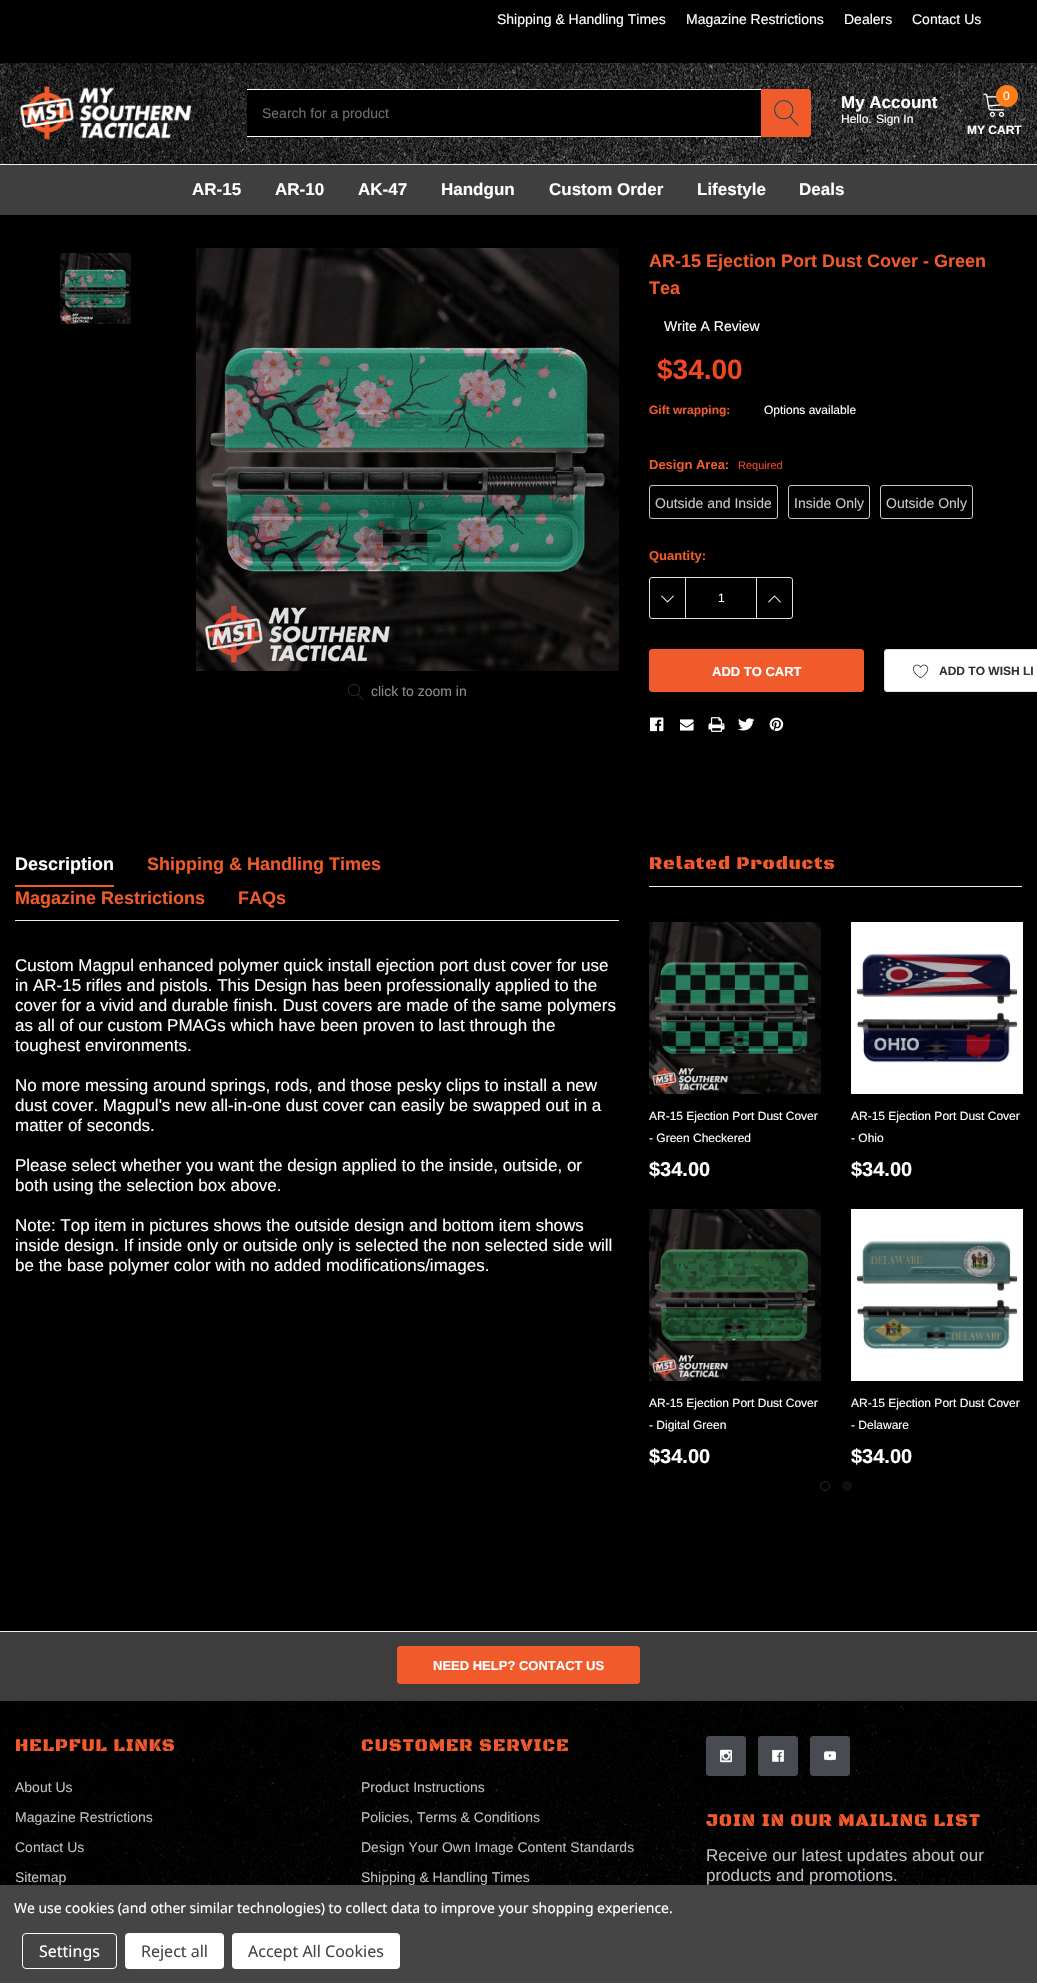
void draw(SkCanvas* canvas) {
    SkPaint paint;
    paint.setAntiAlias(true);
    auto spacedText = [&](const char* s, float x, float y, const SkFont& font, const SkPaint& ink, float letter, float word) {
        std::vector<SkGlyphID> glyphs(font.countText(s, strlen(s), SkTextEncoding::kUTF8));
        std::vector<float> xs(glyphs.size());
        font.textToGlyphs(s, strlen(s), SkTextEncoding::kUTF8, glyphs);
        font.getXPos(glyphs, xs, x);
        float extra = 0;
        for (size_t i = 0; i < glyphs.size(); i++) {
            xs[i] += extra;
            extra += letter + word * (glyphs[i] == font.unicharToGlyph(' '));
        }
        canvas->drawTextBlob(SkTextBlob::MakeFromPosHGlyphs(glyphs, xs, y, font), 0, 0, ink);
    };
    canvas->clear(0xFF000000);
    SkFont font1(fontMgr->matchFamilyStyle("Arimo", SkFontStyle::Normal()), 14);
    font1.setSubpixel(true);
    paint.setColor(0xFFFFFFFF);
    canvas->drawString("Shipping & Handling Times", 497, 24, font1, paint);
    canvas->drawString("Magazine Restrictions", 686, 24, font1, paint);
    canvas->drawString("Dealers", 844, 24, font1, paint);
    canvas->drawString("Contact Us", 912, 24, font1, paint);
    canvas->drawImageRect(SkImages::DeferredFromEncodedData(SkData::MakeFromFileName("img1.png")), SkRect::MakeXYWH(0, 63, 1037, 101), SkSamplingOptions());
    canvas->drawImageRect(SkImages::DeferredFromEncodedData(SkData::MakeFromFileName("img2.png")), SkRect::MakeXYWH(20, 86, 172, 54), SkSamplingOptions());
    paint.setColor(0xFF000000);
    canvas->drawRect(SkRect::MakeXYWH(247, 90, 514, 46), paint);
    paint.setColor(0xFFFFFFFF);
    canvas->drawRect(SkRect::MakeXYWH(247, 89, 514, 1), paint);
    canvas->drawRect(SkRect::MakeXYWH(247, 136, 514, 1), paint);
    paint.setColor(0xFF6E6E6E);
    canvas->drawString("Search for a product", 262, 118, font1, paint);
    paint.setColor(0xFFF15A2B);
    canvas->drawPath(SkPathBuilder().moveTo(761.5f, 89.5f).lineTo(808, 89.5f).cubicTo(809.5f, 89.5f, 810.5f, 90.5f, 810.5f, 92).lineTo(810.5f, 134).cubicTo(810.5f, 135.5f, 809.5f, 136.5f, 808, 136.5f).lineTo(761.5f, 136.5f).close().detach(), paint);
    paint.setStyle(SkPaint::kStroke_Style);
    paint.setStrokeWidth(1);
    canvas->drawPath(SkPathBuilder().moveTo(761.5f, 89.5f).lineTo(808, 89.5f).cubicTo(809.5f, 89.5f, 810.5f, 90.5f, 810.5f, 92).lineTo(810.5f, 134).cubicTo(810.5f, 135.5f, 809.5f, 136.5f, 808, 136.5f).lineTo(761.5f, 136.5f).close().detach(), paint);
    canvas->drawImageRect(SkImages::DeferredFromEncodedData(SkData::MakeFromFileName("img3.png")), SkRect::MakeXYWH(774, 100, 25, 26), SkSamplingOptions());
    SkFont font2(fontMgr->matchFamilyStyle("Arimo", SkFontStyle::Bold()), 17);
    font2.setSubpixel(true);
    paint.setStyle(SkPaint::kFill_Style);
    paint.setColor(0xFFFFFFFF);
    canvas->drawString("My Account", 841, 108, font2, paint);
    SkFont font3(fontMgr->matchFamilyStyle("Arimo", SkFontStyle::Normal()), 12);
    font3.setSubpixel(true);
    canvas->drawString("Hello.", 841, 123, font3, paint);
    canvas->drawString("Sign In", 876, 123, font3, paint);
    canvas->drawImageRect(SkImages::DeferredFromEncodedData(SkData::MakeFromFileName("img4.png")), SkRect::MakeXYWH(921, 117, 8, 5), SkSamplingOptions());
    canvas->drawImageRect(SkImages::DeferredFromEncodedData(SkData::MakeFromFileName("img5.png")), SkRect::MakeXYWH(983, 93, 22, 24), SkSamplingOptions());
    paint.setColor(0xFFFF7D19);
    canvas->drawCircle(1007, 96, 11, paint);
    paint.setColor(0xFFFFFFFF);
    canvas->drawString("0", 1003, 100, font3, paint);
    SkFont font4(fontMgr->matchFamilyStyle("Arimo", SkFontStyle::Bold()), 12);
    font4.setSubpixel(true);
    canvas->drawString("MY CART", 967, 134, font4, paint);
    paint.setColor(0xFF403F3F);
    canvas->drawRect(SkRect::MakeXYWH(0, 165, 1037, 50), paint);
    paint.setColor(0xFFEEEEEE);
    canvas->drawRect(SkRect::MakeXYWH(0, 164, 1037, 1), paint);
    paint.setColor(0xFFFFFFFF);
    canvas->drawString("AR-15", 192, 195, font2, paint);
    canvas->drawString("AR-10", 275, 195, font2, paint);
    canvas->drawString("AK-47", 358, 195, font2, paint);
    canvas->drawString("Handgun", 441, 195, font2, paint);
    canvas->drawString("Custom Order", 549, 195, font2, paint);
    canvas->drawString("Lifestyle", 697, 195, font2, paint);
    canvas->drawString("Deals", 799, 195, font2, paint);
    SkFont font5(fontMgr->matchFamilyStyle("Arimo", SkFontStyle::Bold()), 18);
    font5.setSubpixel(true);
    paint.setColor(0xFFF15A2B);
    canvas->drawString("AR-15 Ejection Port Dust Cover - Green", 649, 267, font5, paint);
    canvas->drawString("Tea", 649, 294, font5, paint);
    paint.setColor(0xFFFFFFFF);
    canvas->drawString("Write A Review", 664, 331, font1, paint);
    SkFont font6(fontMgr->matchFamilyStyle("Arimo", SkFontStyle::Bold()), 28);
    font6.setSubpixel(true);
    paint.setColor(0xFFF04723);
    canvas->drawString("$34.00", 657, 379, font6, paint);
    paint.setColor(0xFFF15A2B);
    canvas->drawString("Gift wrapping:", 649, 414, font4, paint);
    paint.setColor(0xFFFFFFFF);
    canvas->drawString("Options available", 764, 414, font3, paint);
    SkFont font7(fontMgr->matchFamilyStyle("Arimo", SkFontStyle::Bold()), 13);
    font7.setSubpixel(true);
    paint.setColor(0xFFF15A2B);
    canvas->drawString("Design Area:", 649, 469, font7, paint);
    SkFont font8(fontMgr->matchFamilyStyle("Arimo", SkFontStyle::Normal()), 11);
    font8.setSubpixel(true);
    paint.setColor(0xFFF04723);
    canvas->drawString("Required", 738, 469, font8, paint);
    paint.setStyle(SkPaint::kStroke_Style);
    paint.setColor(0xFFC8C8C8);
    canvas->drawRoundRect(SkRect::MakeXYWH(649.5f, 485.5f, 128, 33), 2.5f, 2.5f, paint);
    paint.setStyle(SkPaint::kFill_Style);
    paint.setColor(0xFFC7C7C7);
    canvas->drawString("Outside and Inside", 655, 508, font1, paint);
    paint.setStyle(SkPaint::kStroke_Style);
    paint.setColor(0xFFC8C8C8);
    canvas->drawRoundRect(SkRect::MakeXYWH(788.5f, 485.5f, 81, 33), 2.5f, 2.5f, paint);
    paint.setStyle(SkPaint::kFill_Style);
    paint.setColor(0xFFC7C7C7);
    canvas->drawString("Inside Only", 794, 508, font1, paint);
    paint.setStyle(SkPaint::kStroke_Style);
    paint.setColor(0xFFC8C8C8);
    canvas->drawRoundRect(SkRect::MakeXYWH(880.5f, 485.5f, 92, 33), 2.5f, 2.5f, paint);
    paint.setStyle(SkPaint::kFill_Style);
    paint.setColor(0xFFC7C7C7);
    canvas->drawString("Outside Only", 886, 508, font1, paint);
    paint.setColor(0xFFF15A2B);
    canvas->drawString("Quantity:", 649, 560, font7, paint);
    paint.setStyle(SkPaint::kStroke_Style);
    paint.setColor(0xFFE2E4E8);
    canvas->drawRoundRect(SkRect::MakeXYWH(649.5f, 577.5f, 143, 41), 2.5f, 2.5f, paint);
    paint.setStyle(SkPaint::kFill_Style);
    canvas->drawRect(SkRect::MakeXYWH(685, 578, 1, 40), paint);
    canvas->drawImageRect(SkImages::DeferredFromEncodedData(SkData::MakeFromFileName("img6.png")), SkRect::MakeXYWH(661, 595, 13, 8), SkSamplingOptions());
    paint.setColor(0xFFFFFFFF);
    canvas->drawString("1", 718, 602, font3, paint);
    paint.setColor(0xFFE2E4E8);
    canvas->drawRect(SkRect::MakeXYWH(756, 578, 1, 40), paint);
    canvas->drawImageRect(SkImages::DeferredFromEncodedData(SkData::MakeFromFileName("img7.png")), SkRect::MakeXYWH(768, 595, 13, 8), SkSamplingOptions());
    paint.setColor(0xFFF15A2B);
    canvas->drawRoundRect(SkRect::MakeXYWH(649.5f, 649.5f, 214, 42), 2.5f, 2.5f, paint);
    paint.setStyle(SkPaint::kStroke_Style);
    canvas->drawRoundRect(SkRect::MakeXYWH(649.5f, 649.5f, 214, 42), 2.5f, 2.5f, paint);
    paint.setStyle(SkPaint::kFill_Style);
    paint.setColor(0xFFFFFFFF);
    canvas->drawString("ADD TO CART", 712, 676, font7, paint);
    canvas->drawRoundRect(SkRect::MakeXYWH(884.5f, 649.5f, 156, 42), 2.5f, 2.5f, paint);
    paint.setStyle(SkPaint::kStroke_Style);
    paint.setColor(0xFFE2E4E8);
    canvas->drawRoundRect(SkRect::MakeXYWH(884.5f, 649.5f, 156, 42), 2.5f, 2.5f, paint);
    canvas->drawImageRect(SkImages::DeferredFromEncodedData(SkData::MakeFromFileName("img8.png")), SkRect::MakeXYWH(913, 664, 16, 15), SkSamplingOptions());
    paint.setStyle(SkPaint::kFill_Style);
    paint.setColor(0xFF323232);
    canvas->drawString("ADD TO WISH LI", 939, 675, font4, paint);
    canvas->drawImageRect(SkImages::DeferredFromEncodedData(SkData::MakeFromFileName("img9.png")), SkRect::MakeXYWH(650, 717, 14, 15), SkSamplingOptions());
    canvas->drawImageRect(SkImages::DeferredFromEncodedData(SkData::MakeFromFileName("img10.png")), SkRect::MakeXYWH(680, 719, 14, 12), SkSamplingOptions());
    canvas->drawImageRect(SkImages::DeferredFromEncodedData(SkData::MakeFromFileName("img11.png")), SkRect::MakeXYWH(708, 717, 17, 15), SkSamplingOptions());
    canvas->drawImageRect(SkImages::DeferredFromEncodedData(SkData::MakeFromFileName("img12.png")), SkRect::MakeXYWH(738, 718, 17, 13), SkSamplingOptions());
    canvas->drawImageRect(SkImages::DeferredFromEncodedData(SkData::MakeFromFileName("img13.png")), SkRect::MakeXYWH(769, 717, 15, 15), SkSamplingOptions());
    canvas->drawImageRect(SkImages::DeferredFromEncodedData(SkData::MakeFromFileName("img14.png")), SkRect::MakeXYWH(60, 253, 71, 71), SkSamplingOptions());
    canvas->drawImageRect(SkImages::DeferredFromEncodedData(SkData::MakeFromFileName("img15.png")), SkRect::MakeXYWH(196, 248, 423, 423), SkSamplingOptions());
    canvas->drawImageRect(SkImages::DeferredFromEncodedData(SkData::MakeFromFileName("img16.png")), SkRect::MakeXYWH(348, 684, 16, 16), SkSamplingOptions());
    paint.setColor(0xFF8C8C8C);
    canvas->drawString("click to zoom in", 371, 696, font1, paint);
    paint.setColor(0xFFEEEEEE);
    canvas->drawRect(SkRect::MakeXYWH(15, 920, 604, 1), paint);
    paint.setColor(0xFFFFFFFF);
    canvas->drawString("Description", 15, 870, font5, paint);
    paint.setColor(0xFFF15A2B);
    canvas->drawRect(SkRect::MakeXYWH(15, 885, 99, 2), paint);
    canvas->drawString("Shipping & Handling Times", 147, 870, font5, paint);
    canvas->drawString("Magazine Restrictions", 15, 904, font5, paint);
    canvas->drawString("FAQs", 238, 904, font5, paint);
    SkFont font9(fontMgr->matchFamilyStyle("Arimo", SkFontStyle::Normal()), 17);
    font9.setSubpixel(true);
    paint.setColor(0xFFFFFFFF);
    canvas->drawString("Custom Magpul enhanced polymer quick install ejection port dust cover for use", 15, 971, font9, paint);
    canvas->drawString("in AR-15 rifles and pistols. This Design has been professionally applied to the", 15, 991, font9, paint);
    canvas->drawString("cover for a vivid and durable finish. Dust covers are made of the same polymers", 15, 1011, font9, paint);
    canvas->drawString("as all of our custom PMAGs which have been proven to last through the", 15, 1031, font9, paint);
    canvas->drawString("toughest environments.", 15, 1051, font9, paint);
    canvas->drawString("No more messing around springs, rods, and those pesky clips to install a new", 15, 1091, font9, paint);
    canvas->drawString("dust cover. Magpul's new all-in-one dust cover can easily be swapped out in a", 15, 1111, font9, paint);
    canvas->drawString("matter of seconds.", 15, 1131, font9, paint);
    canvas->drawString("Please select whether you want the design applied to the inside, outside, or", 15, 1171, font9, paint);
    canvas->drawString("both using the selection box above.", 15, 1191, font9, paint);
    canvas->drawString("Note: Top item in pictures shows the outside design and bottom item shows", 15, 1231, font9, paint);
    canvas->drawString("inside design. If inside only or outside only is selected the non selected side will", 15, 1251, font9, paint);
    canvas->drawString("be the base polymer color with no added modifications/images.", 15, 1271, font9, paint);
    paint.setColor(0xFFEEEEEE);
    canvas->drawRect(SkRect::MakeXYWH(649, 886, 373, 1), paint);
    SkFont font10(fontMgr->matchFamilyStyle("Black Ops One", SkFontStyle(900, SkFontStyle::kNormal_Width, SkFontStyle::kUpright_Slant)), 18);
    font10.setSubpixel(true);
    paint.setColor(0xFFF15A2B);
    spacedText("Related Products", 649, 869, font10, paint, 1, 0);
    canvas->drawImageRect(SkImages::DeferredFromEncodedData(SkData::MakeFromFileName("img17.png")), SkRect::MakeXYWH(649, 922, 172, 172), SkSamplingOptions());
    paint.setColor(0xFFFFFFFF);
    canvas->drawString("AR-15 Ejection Port Dust Cover", 649, 1120, font3, paint);
    canvas->drawString("- Green Checkered", 649, 1142, font3, paint);
    SkFont font11(fontMgr->matchFamilyStyle("Arimo", SkFontStyle::Bold()), 20);
    font11.setSubpixel(true);
    canvas->drawString("$34.00", 649, 1176, font11, paint);
    canvas->drawImageRect(SkImages::DeferredFromEncodedData(SkData::MakeFromFileName("img18.png")), SkRect::MakeXYWH(649, 1209, 172, 172), SkSamplingOptions());
    canvas->drawString("AR-15 Ejection Port Dust Cover", 649, 1407, font3, paint);
    canvas->drawString("- Digital Green", 649, 1429, font3, paint);
    canvas->drawString("$34.00", 649, 1463, font11, paint);
    canvas->drawImageRect(SkImages::DeferredFromEncodedData(SkData::MakeFromFileName("img19.png")), SkRect::MakeXYWH(851, 922, 172, 172), SkSamplingOptions());
    canvas->drawString("AR-15 Ejection Port Dust Cover", 851, 1120, font3, paint);
    canvas->drawString("- Ohio", 851, 1142, font3, paint);
    canvas->drawString("$34.00", 851, 1176, font11, paint);
    canvas->drawImageRect(SkImages::DeferredFromEncodedData(SkData::MakeFromFileName("img20.png")), SkRect::MakeXYWH(851, 1209, 172, 172), SkSamplingOptions());
    canvas->drawString("AR-15 Ejection Port Dust Cover", 851, 1407, font3, paint);
    canvas->drawString("- Delaware", 851, 1429, font3, paint);
    canvas->drawString("$34.00", 851, 1463, font11, paint);
    paint.setStyle(SkPaint::kStroke_Style);
    paint.setColor(0xFF282828);
    canvas->drawCircle(825, 1486, 4.5f, paint);
    paint.setStyle(SkPaint::kFill_Style);
    paint.setColor(0xFF0F0F0F);
    canvas->drawCircle(847, 1486, 4.5f, paint);
    paint.setStyle(SkPaint::kStroke_Style);
    canvas->drawCircle(847, 1486, 4.5f, paint);
    paint.setStyle(SkPaint::kFill_Style);
    paint.setColor(0xFF3D3D3D);
    canvas->drawRect(SkRect::MakeXYWH(0, 1632, 1037, 69), paint);
    paint.setColor(0xFFEDEDED);
    canvas->drawRect(SkRect::MakeXYWH(0, 1631, 1037, 1), paint);
    paint.setColor(0xFFF15A2B);
    canvas->drawRoundRect(SkRect::MakeXYWH(397.5f, 1646.5f, 242, 37), 2.5f, 2.5f, paint);
    paint.setStyle(SkPaint::kStroke_Style);
    canvas->drawRoundRect(SkRect::MakeXYWH(397.5f, 1646.5f, 242, 37), 2.5f, 2.5f, paint);
    paint.setStyle(SkPaint::kFill_Style);
    paint.setColor(0xFFFFFFFF);
    canvas->drawString("NEED HELP? CONTACT US", 433, 1670, font7, paint);
    canvas->drawImageRect(SkImages::DeferredFromEncodedData(SkData::MakeFromFileName("img21.png")), SkRect::MakeXYWH(0, 1701, 1037, 184), SkSamplingOptions());
    paint.setColor(0xFFF15A2B);
    spacedText("HELPFUL LINKS", 15, 1751, font10, paint, 1, 0);
    paint.setColor(0xFFBCBFC5);
    canvas->drawString("About Us", 15, 1792, font1, paint);
    canvas->drawString("Magazine Restrictions", 15, 1822, font1, paint);
    canvas->drawString("Contact Us", 15, 1852, font1, paint);
    canvas->drawString("Sitemap", 15, 1882, font1, paint);
    paint.setColor(0xFFF15A2B);
    spacedText("CUSTOMER SERVICE", 361, 1751, font10, paint, 1, 0);
    paint.setColor(0xFFBCBFC5);
    canvas->drawString("Product Instructions", 361, 1792, font1, paint);
    canvas->drawString("Policies, Terms & Conditions", 361, 1822, font1, paint);
    canvas->drawString("Design Your Own Image Content Standards", 361, 1852, font1, paint);
    canvas->drawString("Shipping & Handling Times", 361, 1882, font1, paint);
    paint.setColor(0xFF484B51);
    canvas->drawRoundRect(SkRect::MakeXYWH(706.5f, 1736.5f, 39, 39), 2.5f, 2.5f, paint);
    paint.setStyle(SkPaint::kStroke_Style);
    canvas->drawRoundRect(SkRect::MakeXYWH(706.5f, 1736.5f, 39, 39), 2.5f, 2.5f, paint);
    canvas->drawImageRect(SkImages::DeferredFromEncodedData(SkData::MakeFromFileName("img22.png")), SkRect::MakeXYWH(720, 1749, 12, 14), SkSamplingOptions());
    paint.setStyle(SkPaint::kFill_Style);
    canvas->drawRoundRect(SkRect::MakeXYWH(758.5f, 1736.5f, 39, 39), 2.5f, 2.5f, paint);
    paint.setStyle(SkPaint::kStroke_Style);
    canvas->drawRoundRect(SkRect::MakeXYWH(758.5f, 1736.5f, 39, 39), 2.5f, 2.5f, paint);
    canvas->drawImageRect(SkImages::DeferredFromEncodedData(SkData::MakeFromFileName("img23.png")), SkRect::MakeXYWH(772, 1749, 12, 13), SkSamplingOptions());
    paint.setStyle(SkPaint::kFill_Style);
    canvas->drawRoundRect(SkRect::MakeXYWH(810.5f, 1736.5f, 39, 39), 2.5f, 2.5f, paint);
    paint.setStyle(SkPaint::kStroke_Style);
    canvas->drawRoundRect(SkRect::MakeXYWH(810.5f, 1736.5f, 39, 39), 2.5f, 2.5f, paint);
    canvas->drawImageRect(SkImages::DeferredFromEncodedData(SkData::MakeFromFileName("img24.png")), SkRect::MakeXYWH(824, 1751, 12, 10), SkSamplingOptions());
    paint.setStyle(SkPaint::kFill_Style);
    paint.setColor(0xFFF15A2B);
    spacedText("JOIN IN OUR MAILING LIST", 706, 1826, font10, paint, 1, 0);
    paint.setColor(0xFFBCBFC5);
    canvas->drawString("Receive our latest updates about our", 706, 1861, font9, paint);
    canvas->drawString("products and promotions.", 706, 1881, font9, paint);
    paint.setColor(0xFF454545);
    canvas->drawRect(SkRect::MakeXYWH(0, 1885, 1037, 98), paint);
    SkFont font12(fontMgr->matchFamilyStyle("Noto Sans", SkFontStyle::Normal()), 14);
    font12.setSubpixel(true);
    paint.setColor(0xFFFFFFFF);
    spacedText("We use cookies (and other similar technologies) to collect data to improve your shopping experience.", 14, 1913, font12, paint, -0.05f, 0);
    paint.setStyle(SkPaint::kStroke_Style);
    canvas->drawRoundRect(SkRect::MakeXYWH(22.5f, 1933.5f, 94, 35), 3.5f, 3.5f, paint);
    SkFont font13(fontMgr->matchFamilyStyle("Noto Sans", SkFontStyle::Normal()), 16);
    font13.setSubpixel(true);
    paint.setStyle(SkPaint::kFill_Style);
    canvas->drawString("Settings", 39, 1957, font13, paint);
    canvas->drawRoundRect(SkRect::MakeXYWH(125, 1933, 99, 36), 4, 4, paint);
    paint.setColor(0xFF454545);
    canvas->drawString("Reject all", 141, 1957, font13, paint);
    paint.setColor(0xFFFFFFFF);
    canvas->drawRoundRect(SkRect::MakeXYWH(232, 1933, 168, 36), 4, 4, paint);
    paint.setColor(0xFF454545);
    canvas->drawString("Accept All Cookies", 248, 1957, font13, paint);
}
